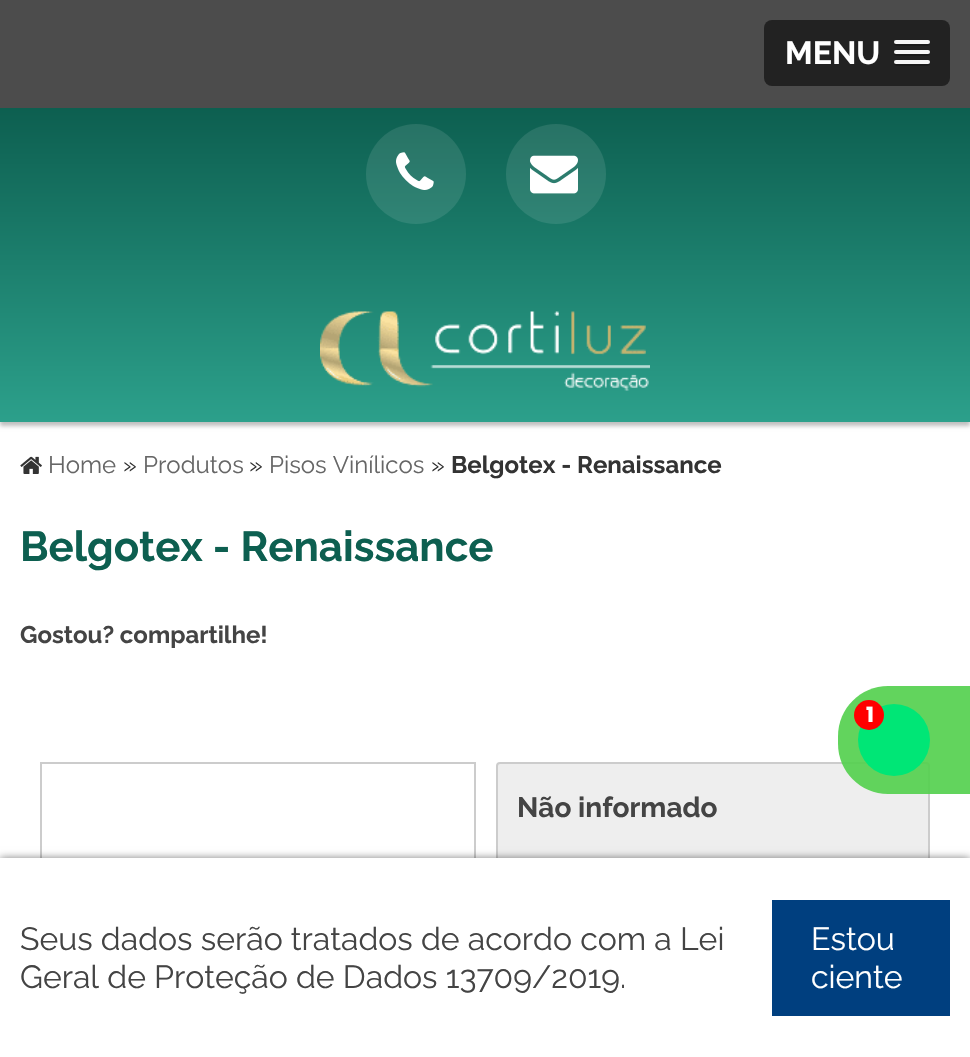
void draw(SkCanvas* canvas) {
    SkPaint paint;
    paint.setAntiAlias(true);
    canvas->clear(0xFFFFFFFF);
    paint.setColor(0xFF4C4C4C);
    canvas->drawRect(SkRect::MakeXYWH(0, 0, 970, 108), paint);
    paint.setColor(0xFF222222);
    canvas->drawRoundRect(SkRect::MakeXYWH(764, 20, 186, 66), 8, 8, paint);
    SkFont font1(fontMgr->matchFamilyStyle("Raleway", SkFontStyle::Bold()), 32);
    font1.setSubpixel(true);
    paint.setColor(0xFFFFFFFF);
    canvas->drawString("MENU", 785, 64, font1, paint);
    paint.setColor(0xFF1A1A1A);
    canvas->drawPath(SkPathBuilder().moveTo(894.5f, 43).cubicTo(892, 47, 901, 46, 901.5f, 46).lineTo(922.5f, 46).cubicTo(923, 46, 932, 47, 929.5f, 43).cubicTo(929.5f, 43.5f, 928.5f, 44, 928, 44).lineTo(896, 44).cubicTo(895.5f, 44, 894.5f, 43.5f, 894.5f, 43).close().detach(), paint);
    paint.setColor(0xFFF5F5F5);
    canvas->drawRoundRect(SkRect::MakeXYWH(894, 40, 36, 4), 2, 2, paint);
    paint.setColor(0xFF1A1A1A);
    canvas->drawPath(SkPathBuilder().moveTo(894.5f, 53).cubicTo(892, 57, 901, 56, 901.5f, 56).lineTo(922.5f, 56).cubicTo(923, 56, 932, 57, 929.5f, 53).cubicTo(929.5f, 53.5f, 928.5f, 54, 928, 54).lineTo(896, 54).cubicTo(895.5f, 54, 894.5f, 53.5f, 894.5f, 53).close().detach(), paint);
    paint.setColor(0xFFF5F5F5);
    canvas->drawRoundRect(SkRect::MakeXYWH(894, 50, 36, 4), 2, 2, paint);
    paint.setColor(0xFF1A1A1A);
    canvas->drawPath(SkPathBuilder().moveTo(894.5f, 63).cubicTo(892, 67, 901, 66, 901.5f, 66).lineTo(922.5f, 66).cubicTo(923, 66, 932, 67, 929.5f, 63).cubicTo(929.5f, 63.5f, 928.5f, 64, 928, 64).lineTo(896, 64).cubicTo(895.5f, 64, 894.5f, 63.5f, 894.5f, 63).close().detach(), paint);
    paint.setColor(0xFFF5F5F5);
    canvas->drawRoundRect(SkRect::MakeXYWH(894, 60, 36, 4), 2, 2, paint);
    paint.setColor(0x40000000);
    paint.setMaskFilter(SkMaskFilter::MakeBlur(kNormal_SkBlurStyle, 2));
    canvas->drawRect(SkRect::MakeXYWH(0, 112, 970, 314), paint);
    paint.setMaskFilter(nullptr);
    {
        const SkColor colors[] = {0xFF0D5F50, 0xFF2CA08B};
        const float stops[] = {0, 1};
        const SkPoint ends[] = {{485, 108}, {485, 422}};
        paint.setShader(SkGradientShader::MakeLinear(ends, colors, stops, 2, SkTileMode::kClamp));
        paint.setAlpha(255);
    }
    canvas->drawRect(SkRect::MakeXYWH(0, 108, 970, 314), paint);
    paint.setShader(nullptr);
    paint.setColor(0x1AFFFFFF);
    canvas->drawCircle(416, 174, 50, paint);
    canvas->drawImageRect(SkImages::DeferredFromEncodedData(SkData::MakeFromFileName("img1.png")), SkRect::MakeXYWH(396, 152, 38, 38), SkSamplingOptions());
    canvas->drawCircle(556, 174, 50, paint);
    canvas->drawImageRect(SkImages::DeferredFromEncodedData(SkData::MakeFromFileName("img2.png")), SkRect::MakeXYWH(530, 155, 48, 39), SkSamplingOptions());
    canvas->drawImageRect(SkImages::DeferredFromEncodedData(SkData::MakeFromFileName("img3.png")), SkRect::MakeXYWH(320, 311, 330, 80), SkSamplingOptions());
    canvas->drawImageRect(SkImages::DeferredFromEncodedData(SkData::MakeFromFileName("img4.png")), SkRect::MakeXYWH(20, 456, 22, 18), SkSamplingOptions());
    SkFont font2(fontMgr->matchFamilyStyle("Raleway", SkFontStyle::Normal()), 24);
    font2.setSubpixel(true);
    paint.setColor(0xFF666666);
    canvas->drawString("Home", 48, 473, font2, paint);
    paint.setColor(0xFF333333);
    canvas->drawString("»", 123, 473, font2, paint);
    paint.setColor(0xFF666666);
    canvas->drawString("Produtos", 143, 473, font2, paint);
    paint.setColor(0xFF333333);
    canvas->drawString("»", 249, 473, font2, paint);
    paint.setColor(0xFF666666);
    canvas->drawString("Pisos Vinílicos", 269, 473, font2, paint);
    paint.setColor(0xFF333333);
    canvas->drawString("»", 431, 473, font2, paint);
    SkFont font3(fontMgr->matchFamilyStyle("Raleway", SkFontStyle::Bold()), 24);
    font3.setSubpixel(true);
    canvas->drawString("Belgotex - Renaissance", 451, 473, font3, paint);
    SkFont font4(fontMgr->matchFamilyStyle("Raleway", SkFontStyle::Bold()), 42);
    font4.setSubpixel(true);
    paint.setColor(0xFF0D5F50);
    canvas->drawString("Belgotex - Renaissance", 20, 561, font4, paint);
    paint.setColor(0xFF444444);
    canvas->drawString("Gostou? compartilhe!", 20, 643, font3, paint);
    paint.setStyle(SkPaint::kStroke_Style);
    paint.setStrokeWidth(2);
    paint.setColor(0xFFCCCCCC);
    canvas->drawRect(SkRect::MakeXYWH(41, 763, 434, 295), paint);
    paint.setStyle(SkPaint::kFill_Style);
    paint.setColor(0xFFEEEEEE);
    canvas->drawRoundRect(SkRect::MakeXYWH(497, 763, 432, 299), 3, 3, paint);
    paint.setStyle(SkPaint::kStroke_Style);
    paint.setColor(0xFFCCCCCC);
    canvas->drawRoundRect(SkRect::MakeXYWH(497, 763, 432, 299), 3, 3, paint);
    SkFont font5(fontMgr->matchFamilyStyle("Raleway", SkFontStyle::Bold()), 28);
    font5.setSubpixel(true);
    paint.setStyle(SkPaint::kFill_Style);
    paint.setColor(0xFF444444);
    canvas->drawString("Não informado", 517, 817, font5, paint);
    paint.setColor(0xE852D04D);
    canvas->drawPath(SkPathBuilder().moveTo(888, 686).lineTo(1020, 686).lineTo(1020, 794).lineTo(888, 794).cubicTo(860.5f, 794, 838, 771.5f, 838, 744).lineTo(838, 736).cubicTo(838, 708.5f, 860.5f, 686, 888, 686).close().detach(), paint);
    paint.setColor(0xFF00E676);
    canvas->drawCircle(894, 740, 36, paint);
    paint.setColor(0xFFFF0000);
    canvas->drawCircle(869, 715, 15, paint);
    SkFont font6(fontMgr->matchFamilyStyle("Poppins", SkFontStyle::Bold()), 21);
    font6.setSubpixel(true);
    paint.setColor(0xFFFFFFFF);
    canvas->drawString("1", 866, 722, font6, paint);
    paint.setColor(0x80000000);
    paint.setMaskFilter(SkMaskFilter::MakeBlur(kNormal_SkBlurStyle, 4));
    canvas->drawRect(SkRect::MakeXYWH(0, 858, 970, 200), paint);
    paint.setMaskFilter(nullptr);
    paint.setColor(0xFFFFFFFF);
    canvas->drawRect(SkRect::MakeXYWH(0, 858, 970, 199), paint);
    SkFont font7(fontMgr->matchFamilyStyle("Raleway", SkFontStyle::Normal()), 32);
    font7.setSubpixel(true);
    paint.setColor(0xFF444444);
    canvas->drawString("Seus dados serão tratados de acordo com a Lei", 20, 950, font7, paint);
    canvas->drawString("Geral de Proteção de Dados 13709/2019.", 20, 988, font7, paint);
    paint.setColor(0xFF003F7F);
    canvas->drawRect(SkRect::MakeXYWH(772, 900, 178, 116), paint);
    paint.setColor(0xFFFFFFFF);
    canvas->drawString("Estou", 811, 950, font7, paint);
    canvas->drawString("ciente", 811, 988, font7, paint);
}
